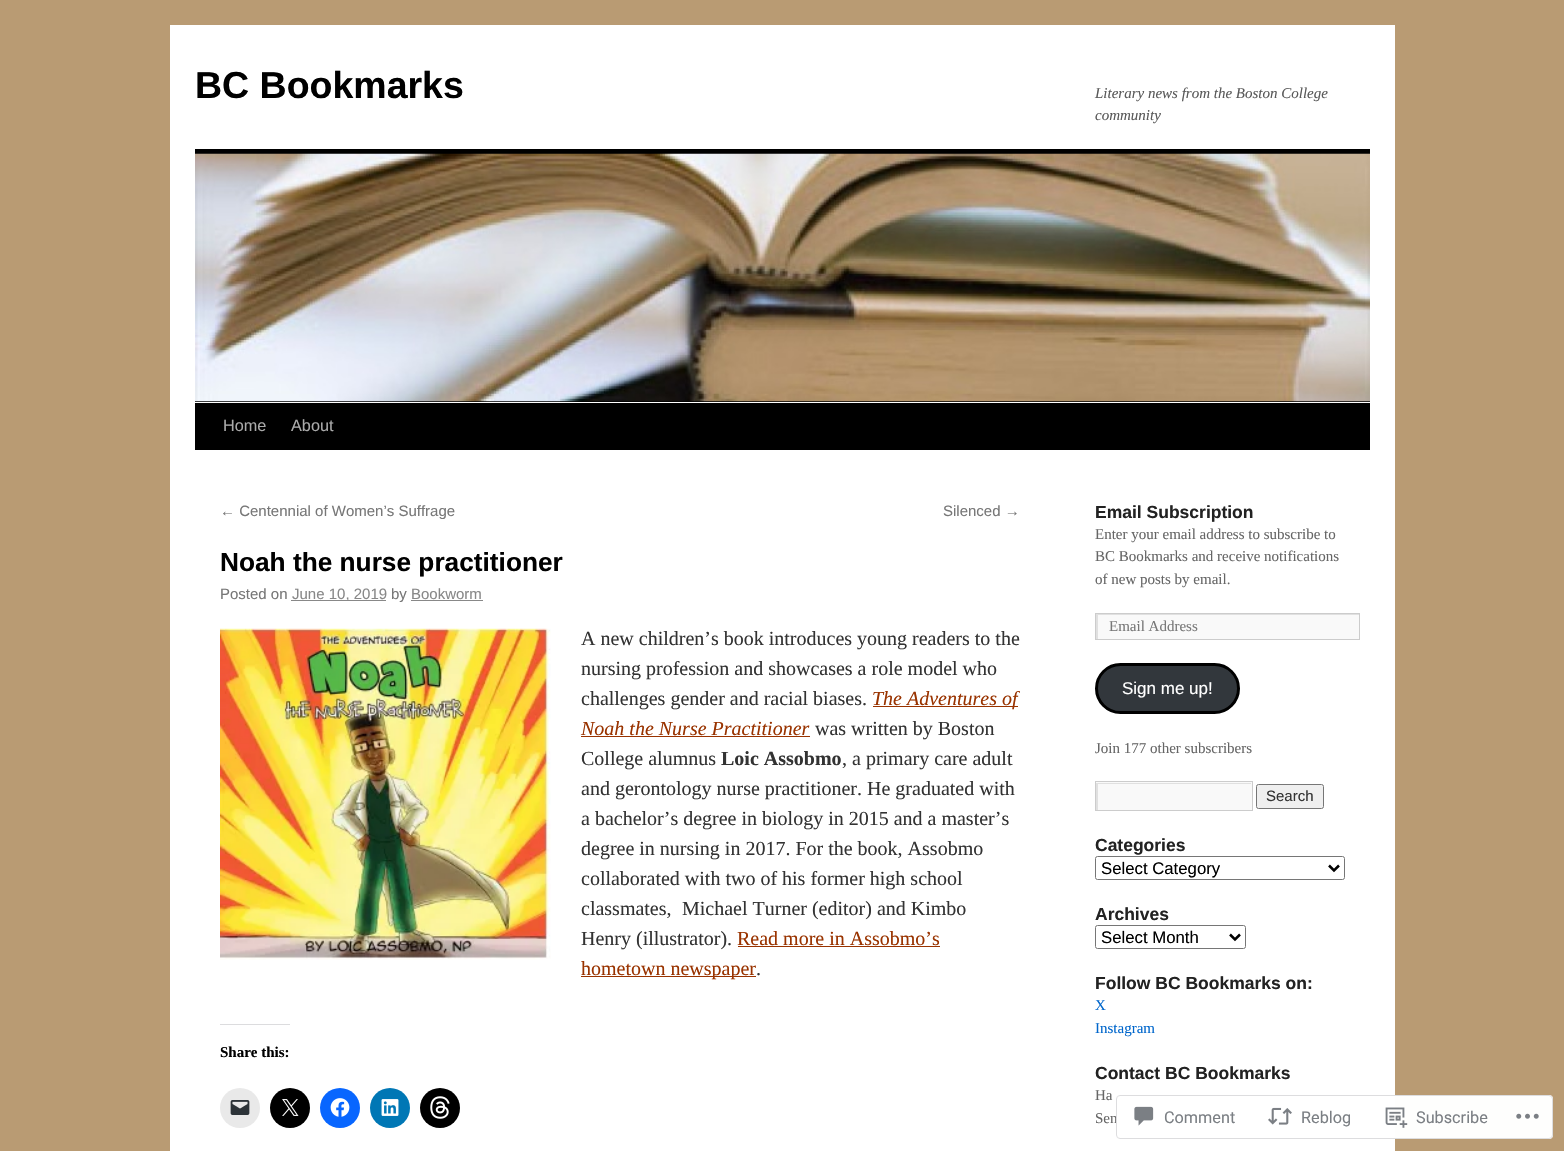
void draw(SkCanvas* canvas) {
    SkPaint paint;
    paint.setAntiAlias(true);
    canvas->clear(0xFFB99B73);
    paint.setColor(0xFFFFFFFF);
    canvas->drawRect(SkRect::MakeXYWH(170, 25, 1225, 1126), paint);
    SkFont font1(fontMgr->matchFamilyStyle("Liberation Sans", SkFontStyle::Bold()), 37.5f);
    font1.setSubpixel(true);
    paint.setColor(0xFF000000);
    canvas->drawString("BC Bookmarks", 195, 98, font1, paint);
    SkFont font2(fontMgr->matchFamilyStyle("Liberation Serif", SkFontStyle::Italic()), 15);
    font2.setSubpixel(true);
    paint.setColor(0xFF595959);
    canvas->drawString("Literary news from the Boston College", 1095, 98, font2, paint);
    canvas->drawString("community", 1095, 120, font2, paint);
    paint.setColor(0xFF000000);
    canvas->drawRect(SkRect::MakeXYWH(195, 149, 1175, 5), paint);
    canvas->drawRect(SkRect::MakeXYWH(195, 401, 1175, 1), paint);
    canvas->drawImageRect(SkImages::DeferredFromEncodedData(SkData::MakeFromFileName("img1.png")), SkRect::MakeXYWH(195, 153, 1175, 249), SkSamplingOptions());
    canvas->drawRect(SkRect::MakeXYWH(195, 403, 1175, 47), paint);
    SkFont font3(fontMgr->matchFamilyStyle("Liberation Sans", SkFontStyle::Normal()), 16.25f);
    font3.setSubpixel(true);
    paint.setColor(0xFFAAAAAA);
    canvas->drawString("Home", 223, 431, font3, paint);
    canvas->drawString("About", 291, 431, font3, paint);
    SkFont font4(fontMgr->matchFamilyStyle("Liberation Sans", SkFontStyle::Normal()), 15);
    font4.setSubpixel(true);
    paint.setColor(0xFF777777);
    canvas->drawString("← Centennial of Women’s Suffrage", 220, 516, font4, paint);
    canvas->drawString("Silenced →", 943, 516, font4, paint);
    SkFont font5(fontMgr->matchFamilyStyle("Liberation Sans", SkFontStyle::Bold()), 26.25f);
    font5.setSubpixel(true);
    paint.setColor(0xFF000000);
    canvas->drawString("Noah the nurse practitioner", 220, 571, font5, paint);
    paint.setColor(0xFF777777);
    canvas->drawString("Posted on", 220, 599, font4, paint);
    paint.setColor(0xFF888888);
    canvas->drawRect(SkRect::MakeXYWH(291, 600, 95, 1), paint);
    canvas->drawString("June 10, 2019", 292, 599, font4, paint);
    paint.setColor(0xFF777777);
    canvas->drawString("by", 391, 599, font4, paint);
    paint.setColor(0xFF888888);
    canvas->drawString("Bookworm", 411, 599, font4, paint);
    canvas->drawRect(SkRect::MakeXYWH(411, 600, 72, 1), paint);
    canvas->drawImageRect(SkImages::DeferredFromEncodedData(SkData::MakeFromFileName("img2.png")), SkRect::MakeXYWH(220, 628, 331, 332), SkSamplingOptions());
    SkFont font6(fontMgr->matchFamilyStyle("Liberation Serif", SkFontStyle::Normal()), 20);
    font6.setSubpixel(true);
    paint.setColor(0xFF333333);
    canvas->drawString("A new children’s book introduces young readers to the", 581, 645, font6, paint);
    canvas->drawString("nursing profession and showcases a role model who", 581, 675, font6, paint);
    canvas->drawString("challenges gender and racial biases.", 581, 705, font6, paint);
    paint.setColor(0xFF993300);
    canvas->drawRect(SkRect::MakeXYWH(873, 706, 145, 1), paint);
    SkFont font7(fontMgr->matchFamilyStyle("Liberation Serif", SkFontStyle::Italic()), 20);
    font7.setSubpixel(true);
    canvas->drawString("The Adventures of", 872, 705, font7, paint);
    canvas->drawString("Noah the Nurse Practitioner", 581, 735, font7, paint);
    canvas->drawRect(SkRect::MakeXYWH(581, 736, 229, 1), paint);
    paint.setColor(0xFF333333);
    canvas->drawString("was written by Boston", 815, 735, font6, paint);
    canvas->drawString("College alumnus", 581, 765, font6, paint);
    SkFont font8(fontMgr->matchFamilyStyle("Liberation Serif", SkFontStyle::Bold()), 20);
    font8.setSubpixel(true);
    canvas->drawString("Loic Assobmo", 721, 765, font8, paint);
    canvas->drawString(", a primary care adult", 842, 765, font6, paint);
    canvas->drawString("and gerontology nurse practitioner. He graduated with", 581, 795, font6, paint);
    canvas->drawString("a bachelor’s degree in biology in 2015 and a master’s", 581, 825, font6, paint);
    canvas->drawString("degree in nursing in 2017. For the book, Assobmo", 581, 855, font6, paint);
    canvas->drawString("collaborated with two of his former high school", 581, 885, font6, paint);
    canvas->drawString("classmates,", 581, 915, font6, paint);
    canvas->drawString("Michael Turner (editor) and Kimbo", 682, 915, font6, paint);
    canvas->drawString("Henry (illustrator).", 581, 945, font6, paint);
    paint.setColor(0xFF993300);
    canvas->drawString("Read more in Assobmo’s", 737, 945, font6, paint);
    canvas->drawRect(SkRect::MakeXYWH(738, 946, 202, 1), paint);
    canvas->drawRect(SkRect::MakeXYWH(581, 976, 175, 1), paint);
    canvas->drawString("hometown newspaper", 581, 975, font6, paint);
    paint.setColor(0xFF333333);
    canvas->drawString(".", 756, 975, font6, paint);
    paint.setColor(0xFFDCDCDE);
    canvas->drawRect(SkRect::MakeXYWH(220, 1024, 70, 1), paint);
    SkFont font9(fontMgr->matchFamilyStyle("Liberation Serif", SkFontStyle::Bold()), 15);
    font9.setSubpixel(true);
    paint.setColor(0xFF000000);
    canvas->drawString("Share this:", 220, 1057, font9, paint);
    paint.setColor(0xFFE9E9E9);
    canvas->drawCircle(240, 1108, 20, paint);
    canvas->drawImageRect(SkImages::DeferredFromEncodedData(SkData::MakeFromFileName("img3.png")), SkRect::MakeXYWH(230, 1100, 20, 15), SkSamplingOptions());
    paint.setColor(0xFF000000);
    canvas->drawCircle(290, 1108, 20, paint);
    canvas->drawImageRect(SkImages::DeferredFromEncodedData(SkData::MakeFromFileName("img4.png")), SkRect::MakeXYWH(282, 1099, 17, 17), SkSamplingOptions());
    paint.setColor(0xFF0866FF);
    canvas->drawCircle(340, 1108, 20, paint);
    canvas->drawImageRect(SkImages::DeferredFromEncodedData(SkData::MakeFromFileName("img5.png")), SkRect::MakeXYWH(330, 1098, 20, 19), SkSamplingOptions());
    paint.setColor(0xFF0077B5);
    canvas->drawCircle(390, 1108, 20, paint);
    canvas->drawImageRect(SkImages::DeferredFromEncodedData(SkData::MakeFromFileName("img6.png")), SkRect::MakeXYWH(381, 1099, 18, 17), SkSamplingOptions());
    paint.setColor(0xFF000000);
    canvas->drawCircle(440, 1108, 20, paint);
    canvas->drawImageRect(SkImages::DeferredFromEncodedData(SkData::MakeFromFileName("img7.png")), SkRect::MakeXYWH(430, 1096, 20, 23), SkSamplingOptions());
    SkFont font10(fontMgr->matchFamilyStyle("Liberation Sans", SkFontStyle::Bold()), 17.5f);
    font10.setSubpixel(true);
    paint.setColor(0xFF222222);
    canvas->drawString("Email Subscription", 1095, 518, font10, paint);
    SkFont font11(fontMgr->matchFamilyStyle("Liberation Serif", SkFontStyle::Normal()), 15);
    font11.setSubpixel(true);
    paint.setColor(0xFF666666);
    canvas->drawString("Enter your email address to subscribe to", 1095, 539, font11, paint);
    canvas->drawString("BC Bookmarks and receive notifications", 1095, 561, font11, paint);
    canvas->drawString("of new posts by email.", 1095, 584, font11, paint);
    paint.setColor(0xFFF9F9F9);
    canvas->drawRect(SkRect::MakeXYWH(1098, 615, 261, 24), paint);
    canvas->save();
    canvas->clipRect(SkRect::MakeXYWH(1096, 614, 263, 25));
    paint.setColor(0xFFE0E0E0);
    canvas->drawPath(SkPathBuilder(SkPathFillType::kEvenOdd).moveTo(972, 490).lineTo(1482, 490).lineTo(1482, 762).lineTo(972, 762).close().moveTo(1098, 615).lineTo(1360, 615).lineTo(1360, 640).lineTo(1098, 640).close().detach(), paint);
    canvas->restore();
    paint.setStyle(SkPaint::kStroke_Style);
    paint.setStrokeWidth(1);
    paint.setColor(0xFFCCCCCC);
    canvas->drawRect(SkRect::MakeXYWH(1095.5f, 613.5f, 264, 26), paint);
    paint.setStyle(SkPaint::kFill_Style);
    paint.setColor(0xFF777777);
    canvas->drawString("Email Address", 1109, 631, font11, paint);
    paint.setColor(0xFF32373C);
    canvas->drawRoundRect(SkRect::MakeXYWH(1096.5f, 664.5f, 142, 48), 24, 24, paint);
    paint.setStyle(SkPaint::kStroke_Style);
    paint.setStrokeWidth(3);
    paint.setColor(0xFF000000);
    canvas->drawRoundRect(SkRect::MakeXYWH(1096.5f, 664.5f, 142, 48), 24, 24, paint);
    SkFont font12(fontMgr->matchFamilyStyle("Liberation Sans", SkFontStyle::Normal()), 17);
    font12.setSubpixel(true);
    paint.setStyle(SkPaint::kFill_Style);
    paint.setColor(0xFFFFFFFF);
    canvas->drawString("Sign me up!", 1122, 694, font12, paint);
    paint.setColor(0xFF666666);
    canvas->drawString("Join 177 other subscribers", 1095, 753, font11, paint);
    paint.setColor(0xFFF9F9F9);
    canvas->drawRect(SkRect::MakeXYWH(1096, 782, 156, 28), paint);
    canvas->save();
    canvas->clipRect(SkRect::MakeXYWH(1096, 783, 155, 27));
    paint.setColor(0xFFE0E0E0);
    canvas->drawPath(SkPathBuilder(SkPathFillType::kEvenOdd).moveTo(972, 659).lineTo(1375, 659).lineTo(1375, 934).lineTo(972, 934).close().moveTo(1098, 784).lineTo(1252, 784).lineTo(1252, 811).lineTo(1098, 811).close().detach(), paint);
    canvas->restore();
    paint.setStyle(SkPaint::kStroke_Style);
    paint.setStrokeWidth(1);
    paint.setColor(0xFFCCCCCC);
    canvas->drawRect(SkRect::MakeXYWH(1095.5f, 781.5f, 157, 29), paint);
    paint.setStyle(SkPaint::kFill_Style);
    paint.setColor(0xFFEFEFEF);
    canvas->drawRoundRect(SkRect::MakeXYWH(1256.5f, 784.5f, 67, 24), 2, 2, paint);
    paint.setStyle(SkPaint::kStroke_Style);
    paint.setColor(0xFF767676);
    canvas->drawRoundRect(SkRect::MakeXYWH(1256.5f, 784.5f, 67, 24), 2, 2, paint);
    paint.setStyle(SkPaint::kFill_Style);
    paint.setColor(0xFF333333);
    canvas->drawString("Search", 1266, 801, font4, paint);
    paint.setColor(0xFF222222);
    canvas->drawString("Categories", 1095, 851, font10, paint);
    paint.setStyle(SkPaint::kStroke_Style);
    paint.setColor(0xFF767676);
    canvas->drawRoundRect(SkRect::MakeXYWH(1095.5f, 856.5f, 249, 23), 2, 2, paint);
    paint.setStrokeWidth(2.5f);
    paint.setColor(0xFF000000);
    canvas->drawPath(SkPathBuilder().moveTo(1329, 865.5f).lineTo(1334, 870.5f).lineTo(1339, 865.5f).detach(), paint);
    SkFont font13(fontMgr->matchFamilyStyle("Liberation Sans", SkFontStyle::Normal()), 16.75f);
    font13.setSubpixel(true);
    paint.setStyle(SkPaint::kFill_Style);
    canvas->drawString("Select Category", 1101, 874, font13, paint);
    paint.setColor(0xFF222222);
    canvas->drawString("Archives", 1095, 920, font10, paint);
    paint.setStyle(SkPaint::kStroke_Style);
    paint.setStrokeWidth(1);
    paint.setColor(0xFF767676);
    canvas->drawRoundRect(SkRect::MakeXYWH(1095.5f, 925.5f, 150, 23), 2, 2, paint);
    paint.setStrokeWidth(2.5f);
    paint.setColor(0xFF000000);
    canvas->drawPath(SkPathBuilder().moveTo(1230, 934.5f).lineTo(1235, 939.5f).lineTo(1240, 934.5f).detach(), paint);
    paint.setStyle(SkPaint::kFill_Style);
    canvas->drawString("Select Month", 1101, 943, font13, paint);
    paint.setColor(0xFF222222);
    canvas->drawString("Follow BC Bookmarks on:", 1095, 989, font10, paint);
    paint.setColor(0xFF0066CC);
    canvas->drawString("X", 1095, 1010, font11, paint);
    canvas->drawString("Instagram", 1095, 1033, font11, paint);
    paint.setColor(0xFF222222);
    canvas->drawString("Contact BC Bookmarks", 1095, 1079, font10, paint);
    paint.setColor(0xFF666666);
    canvas->drawString("Ha", 1095, 1100, font11, paint);
    canvas->drawString("Sen", 1095, 1123, font11, paint);
    paint.setColor(0xFAFFFFFF);
    canvas->drawRoundRect(SkRect::MakeXYWH(1116, 1095, 437, 44), 4, 4, paint);
    paint.setStyle(SkPaint::kStroke_Style);
    paint.setStrokeWidth(1);
    paint.setColor(0xFADCDCDE);
    canvas->drawRoundRect(SkRect::MakeXYWH(1116.5f, 1095.5f, 436, 43), 3.5f, 3.5f, paint);
    canvas->drawImageRect(SkImages::DeferredFromEncodedData(SkData::MakeFromFileName("img8.png")), SkRect::MakeXYWH(1134, 1106, 20, 20), SkSamplingOptions());
    SkFont font14(fontMgr->matchFamilyStyle("Roboto", SkFontStyle::Normal()), 16.25f);
    font14.setSubpixel(true);
    paint.setStyle(SkPaint::kFill_Style);
    paint.setColor(0xFF7B7F84);
    canvas->drawString("Comment", 1164, 1123, font14, paint);
    canvas->drawImageRect(SkImages::DeferredFromEncodedData(SkData::MakeFromFileName("img9.png")), SkRect::MakeXYWH(1268, 1107, 24, 18), SkSamplingOptions());
    canvas->drawString("Reblog", 1301, 1123, font14, paint);
    canvas->drawImageRect(SkImages::DeferredFromEncodedData(SkData::MakeFromFileName("img10.png")), SkRect::MakeXYWH(1385, 1107, 23, 21), SkSamplingOptions());
    canvas->drawString("Subscribe", 1416, 1123, font14, paint);
    canvas->drawImageRect(SkImages::DeferredFromEncodedData(SkData::MakeFromFileName("img11.png")), SkRect::MakeXYWH(1516, 1113, 23, 6), SkSamplingOptions());
}
